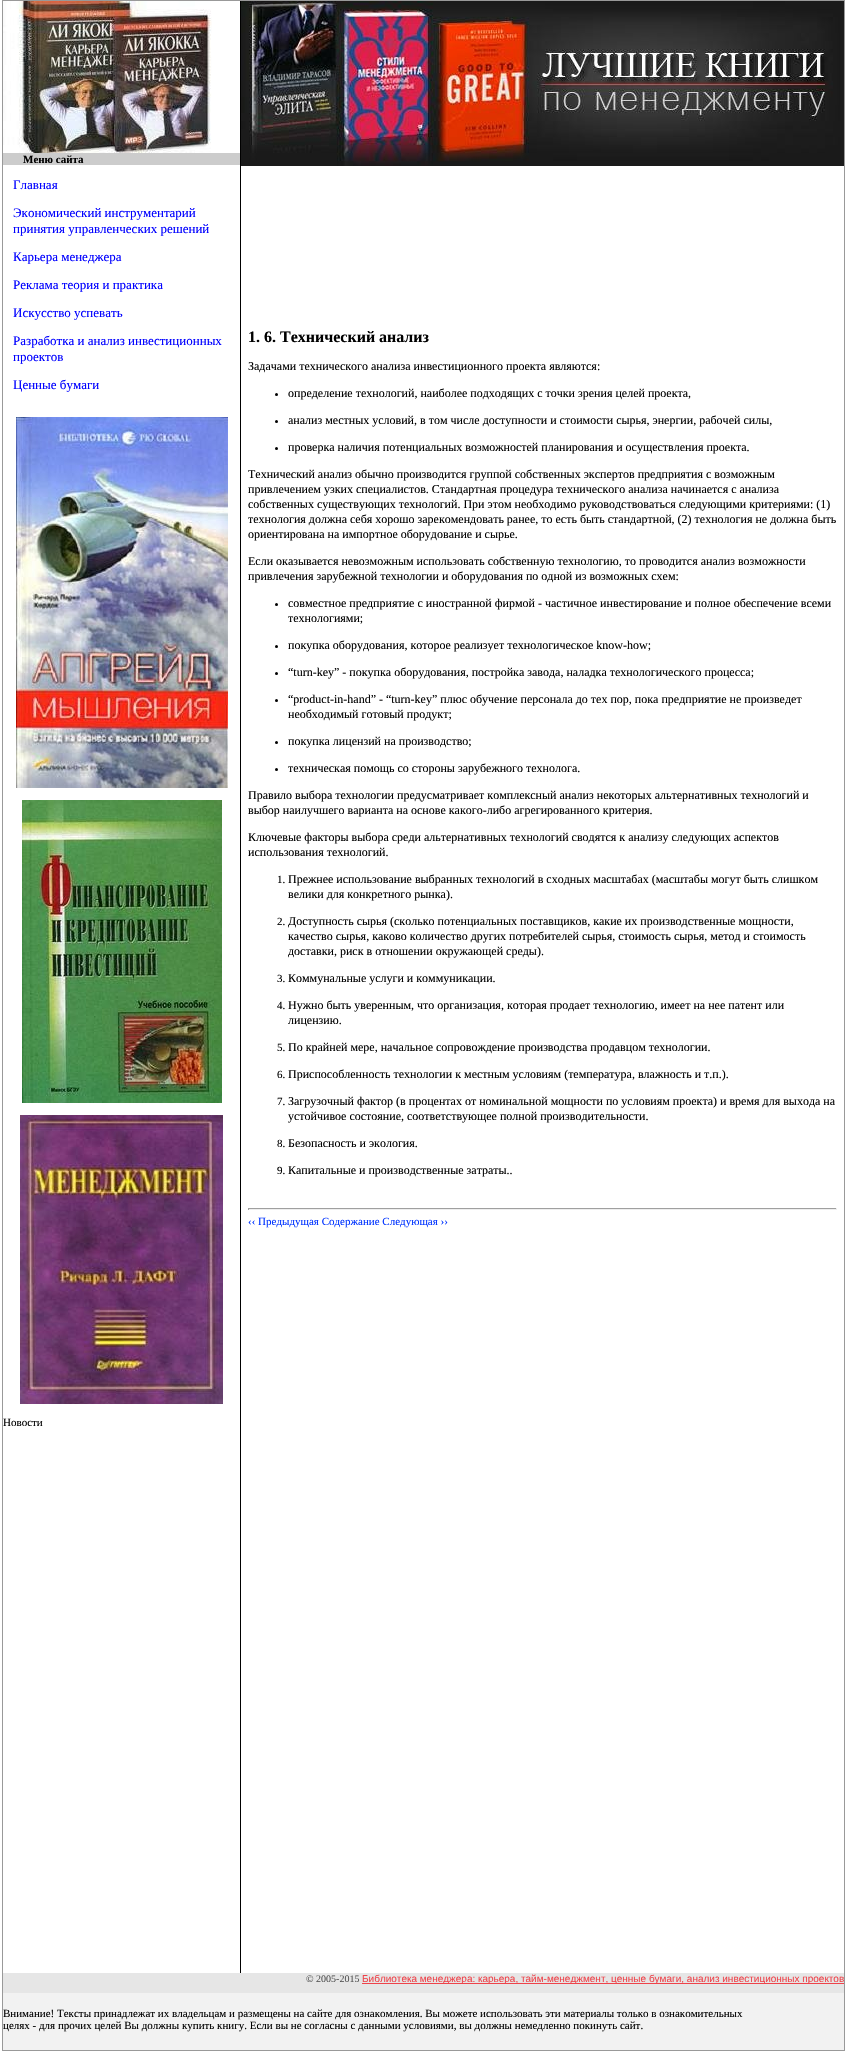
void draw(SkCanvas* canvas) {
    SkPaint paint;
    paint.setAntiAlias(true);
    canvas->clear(0xFFFFFFFF);
    paint.setColor(0xFF999999);
    canvas->drawRect(SkRect::MakeXYWH(2, 0, 843, 1), paint);
    canvas->drawRect(SkRect::MakeXYWH(844, 0, 1, 2051), paint);
    canvas->drawRect(SkRect::MakeXYWH(2, 2050, 843, 1), paint);
    canvas->drawRect(SkRect::MakeXYWH(2, 0, 1, 2051), paint);
    paint.setColor(0xFF000000);
    canvas->drawRect(SkRect::MakeXYWH(240, 1, 1, 1972), paint);
    canvas->drawImageRect(SkImages::DeferredFromEncodedData(SkData::MakeFromFileName("img1.png")), SkRect::MakeXYWH(3, 1, 209, 152), SkSamplingOptions());
    paint.setColor(0xFFCCCCCC);
    canvas->drawRect(SkRect::MakeXYWH(3, 153, 237, 12), paint);
    SkFont font1(fontMgr->matchFamilyStyle("Liberation Serif", SkFontStyle::Bold()), 11);
    font1.setSubpixel(true);
    paint.setColor(0xFF000000);
    canvas->drawString("Меню сайта", 23, 163, font1, paint);
    SkFont font2(fontMgr->matchFamilyStyle("Liberation Serif", SkFontStyle::Normal()), 13);
    font2.setSubpixel(true);
    paint.setColor(0xFF0000FF);
    canvas->drawString("Главная", 13, 189, font2, paint);
    canvas->drawString("Экономический инструментарий", 13, 217, font2, paint);
    canvas->drawString("принятия управленческих решений", 13, 233, font2, paint);
    canvas->drawString("Карьера менеджера", 13, 261, font2, paint);
    canvas->drawString("Реклама теория и практика", 13, 289, font2, paint);
    canvas->drawString("Искусство успевать", 13, 317, font2, paint);
    canvas->drawString("Разработка и анализ инвестиционных", 13, 345, font2, paint);
    canvas->drawString("проектов", 13, 361, font2, paint);
    canvas->drawString("Ценные бумаги", 13, 389, font2, paint);
    canvas->drawImageRect(SkImages::DeferredFromEncodedData(SkData::MakeFromFileName("img2.png")), SkRect::MakeXYWH(16, 417, 212, 371), SkSamplingOptions());
    canvas->drawImageRect(SkImages::DeferredFromEncodedData(SkData::MakeFromFileName("img3.png")), SkRect::MakeXYWH(22, 800, 200, 303), SkSamplingOptions());
    canvas->drawImageRect(SkImages::DeferredFromEncodedData(SkData::MakeFromFileName("img4.png")), SkRect::MakeXYWH(20, 1115, 203, 289), SkSamplingOptions());
    SkFont font3(fontMgr->matchFamilyStyle("Liberation Serif", SkFontStyle::Normal()), 11);
    font3.setSubpixel(true);
    paint.setColor(0xFF000000);
    canvas->drawString("Новости", 3, 1426, font3, paint);
    canvas->drawImageRect(SkImages::DeferredFromEncodedData(SkData::MakeFromFileName("img5.png")), SkRect::MakeXYWH(241, 1, 603, 165), SkSamplingOptions());
    SkFont font4(fontMgr->matchFamilyStyle("Liberation Serif", SkFontStyle::Bold()), 16);
    font4.setSubpixel(true);
    canvas->drawString("1. 6. Технический анализ", 248, 342, font4, paint);
    SkFont font5(fontMgr->matchFamilyStyle("Liberation Serif", SkFontStyle::Normal()), 12);
    font5.setSubpixel(true);
    canvas->drawString("Задачами технического анализа инвестиционного проекта являются:", 248, 370, font5, paint);
    canvas->drawCircle(276.5f, 394.5f, 1.5f, paint);
    canvas->drawString("определение технологий, наиболее подходящих с точки зрения целей проекта,", 288, 397, font5, paint);
    canvas->drawCircle(276.5f, 421.5f, 1.5f, paint);
    canvas->drawString("анализ местных условий, в том числе доступности и стоимости сырья, энергии, рабочей силы,", 288, 424, font5, paint);
    canvas->drawCircle(276.5f, 448.5f, 1.5f, paint);
    canvas->drawString("проверка наличия потенциальных возможностей планирования и осуществления проекта.", 288, 451, font5, paint);
    canvas->drawString("Технический анализ обычно производится группой собственных экспертов предприятия с возможным", 248, 478, font5, paint);
    canvas->drawString("привлечением узких специалистов. Стандартная процедура технического анализа начинается с анализа", 248, 493, font5, paint);
    canvas->drawString("собственных существующих технологий. При этом необходимо руководствоваться следующими критериями: (1)", 248, 508, font5, paint);
    canvas->drawString("технология должна себя хорошо зарекомендовать ранее, то есть быть стандартной, (2) технология не должна быть", 248, 523, font5, paint);
    canvas->drawString("ориентирована на импортное оборудование и сырье.", 248, 538, font5, paint);
    canvas->drawString("Если оказывается невозможным использовать собственную технологию, то проводится анализ возможности", 248, 565, font5, paint);
    canvas->drawString("привлечения зарубежной технологии и оборудования по одной из возможных схем:", 248, 580, font5, paint);
    canvas->drawCircle(276.5f, 604.5f, 1.5f, paint);
    canvas->drawString("совместное предприятие с иностранной фирмой - частичное инвестирование и полное обеспечение всеми", 288, 607, font5, paint);
    canvas->drawString("технологиями;", 288, 622, font5, paint);
    canvas->drawCircle(276.5f, 646.5f, 1.5f, paint);
    canvas->drawString("покупка оборудования, которое реализует технологическое know-how;", 288, 649, font5, paint);
    canvas->drawCircle(276.5f, 673.5f, 1.5f, paint);
    canvas->drawString("“turn-key” - покупка оборудования, постройка завода, наладка технологического процесса;", 288, 676, font5, paint);
    canvas->drawCircle(276.5f, 700.5f, 1.5f, paint);
    canvas->drawString("“product-in-hand” - “turn-key” плюс обучение персонала до тех пор, пока предприятие не произведет", 288, 703, font5, paint);
    canvas->drawString("необходимый готовый продукт;", 288, 718, font5, paint);
    canvas->drawCircle(276.5f, 742.5f, 1.5f, paint);
    canvas->drawString("покупка лицензий на производство;", 288, 745, font5, paint);
    canvas->drawCircle(276.5f, 769.5f, 1.5f, paint);
    canvas->drawString("техническая помощь со стороны зарубежного технолога.", 288, 772, font5, paint);
    canvas->drawString("Правило выбора технологии предусматривает комплексный анализ некоторых альтернативных технологий и", 248, 799, font5, paint);
    canvas->drawString("выбор наилучшего варианта на основе какого-либо агрегированного критерия.", 248, 814, font5, paint);
    canvas->drawString("Ключевые факторы выбора среди альтернативных технологий сводятся к анализу следующих аспектов", 248, 841, font5, paint);
    canvas->drawString("использования технологий.", 248, 856, font5, paint);
    canvas->drawString("1.", 277, 883, font3, paint);
    canvas->drawString("Прежнее использование выбранных технологий в сходных масштабах (масштабы могут быть слишком", 288, 883, font5, paint);
    canvas->drawString("велики для конкретного рынка).", 288, 898, font5, paint);
    canvas->drawString("2.", 277, 925, font3, paint);
    canvas->drawString("Доступность сырья (сколько потенциальных поставщиков, какие их производственные мощности,", 288, 925, font5, paint);
    canvas->drawString("качество сырья, каково количество других потребителей сырья, стоимость сырья, метод и стоимость", 288, 940, font5, paint);
    canvas->drawString("доставки, риск в отношении окружающей среды).", 288, 955, font5, paint);
    canvas->drawString("3.", 277, 982, font3, paint);
    canvas->drawString("Коммунальные услуги и коммуникации.", 288, 982, font5, paint);
    canvas->drawString("4.", 277, 1009, font3, paint);
    canvas->drawString("Нужно быть уверенным, что организация, которая продает технологию, имеет на нее патент или", 288, 1009, font5, paint);
    canvas->drawString("лицензию.", 288, 1024, font5, paint);
    canvas->drawString("5.", 277, 1051, font3, paint);
    canvas->drawString("По крайней мере, начальное сопровождение производства продавцом технологии.", 288, 1051, font5, paint);
    canvas->drawString("6.", 277, 1078, font3, paint);
    canvas->drawString("Приспособленность технологии к местным условиям (температура, влажность и т.п.).", 288, 1078, font5, paint);
    canvas->drawString("7.", 277, 1105, font3, paint);
    canvas->drawString("Загрузочный фактор (в процентах от номинальной мощности по условиям проекта) и время для выхода на", 288, 1105, font5, paint);
    canvas->drawString("устойчивое состояние, соответствующее полной производительности.", 288, 1120, font5, paint);
    canvas->drawString("8.", 277, 1147, font3, paint);
    canvas->drawString("Безопасность и экология.", 288, 1147, font5, paint);
    canvas->drawString("9.", 277, 1174, font3, paint);
    canvas->drawString("Капитальные и производственные затраты..", 288, 1174, font5, paint);
    paint.setColor(0xFF9F9F9F);
    canvas->drawRect(SkRect::MakeXYWH(248, 1208, 589, 1), paint);
    paint.setColor(0xFFEEEEEE);
    canvas->drawRect(SkRect::MakeXYWH(836, 1208, 1, 2), paint);
    canvas->drawRect(SkRect::MakeXYWH(248, 1209, 589, 1), paint);
    paint.setColor(0xFF9F9F9F);
    canvas->drawRect(SkRect::MakeXYWH(248, 1208, 1, 2), paint);
    paint.setColor(0xFF0033FF);
    canvas->drawString("‹‹ Предыдущая Содержание Следующая ››", 248, 1225, font3, paint);
    paint.setColor(0xFFF2F2F2);
    canvas->drawRect(SkRect::MakeXYWH(3, 1993, 841, 57), paint);
    paint.setColor(0xFFE6E6E6);
    canvas->drawRect(SkRect::MakeXYWH(3, 1973, 841, 20), paint);
    SkFont font6(fontMgr->matchFamilyStyle("Liberation Serif", SkFontStyle::Normal()), 10);
    font6.setSubpixel(true);
    paint.setColor(0xFF535353);
    canvas->drawString("© 2005-2015", 306, 1982, font6, paint);
    paint.setColor(0xFFEE434A);
    canvas->drawRect(SkRect::MakeXYWH(362, 1983, 482, 1), paint);
    SkFont font7(fontMgr->matchFamilyStyle("Liberation Sans", SkFontStyle::Normal()), 10);
    font7.setSubpixel(true);
    canvas->drawString("Библиотека менеджера: карьера, тайм-менеджмент, ценные бумаги, анализ инвестиционных проектов", 362, 1982, font7, paint);
    paint.setColor(0xFF000000);
    canvas->drawString("Внимание! Тексты принадлежат их владельцам и размещены на сайте для ознакомления. Вы можете использовать эти материалы только в ознакомительных", 3, 2017, font3, paint);
    canvas->drawString("целях - для прочих целей Вы должны купить книгу. Если вы не согласны с данными условиями, вы должны немедленно покинуть сайт.", 3, 2029, font3, paint);
}
